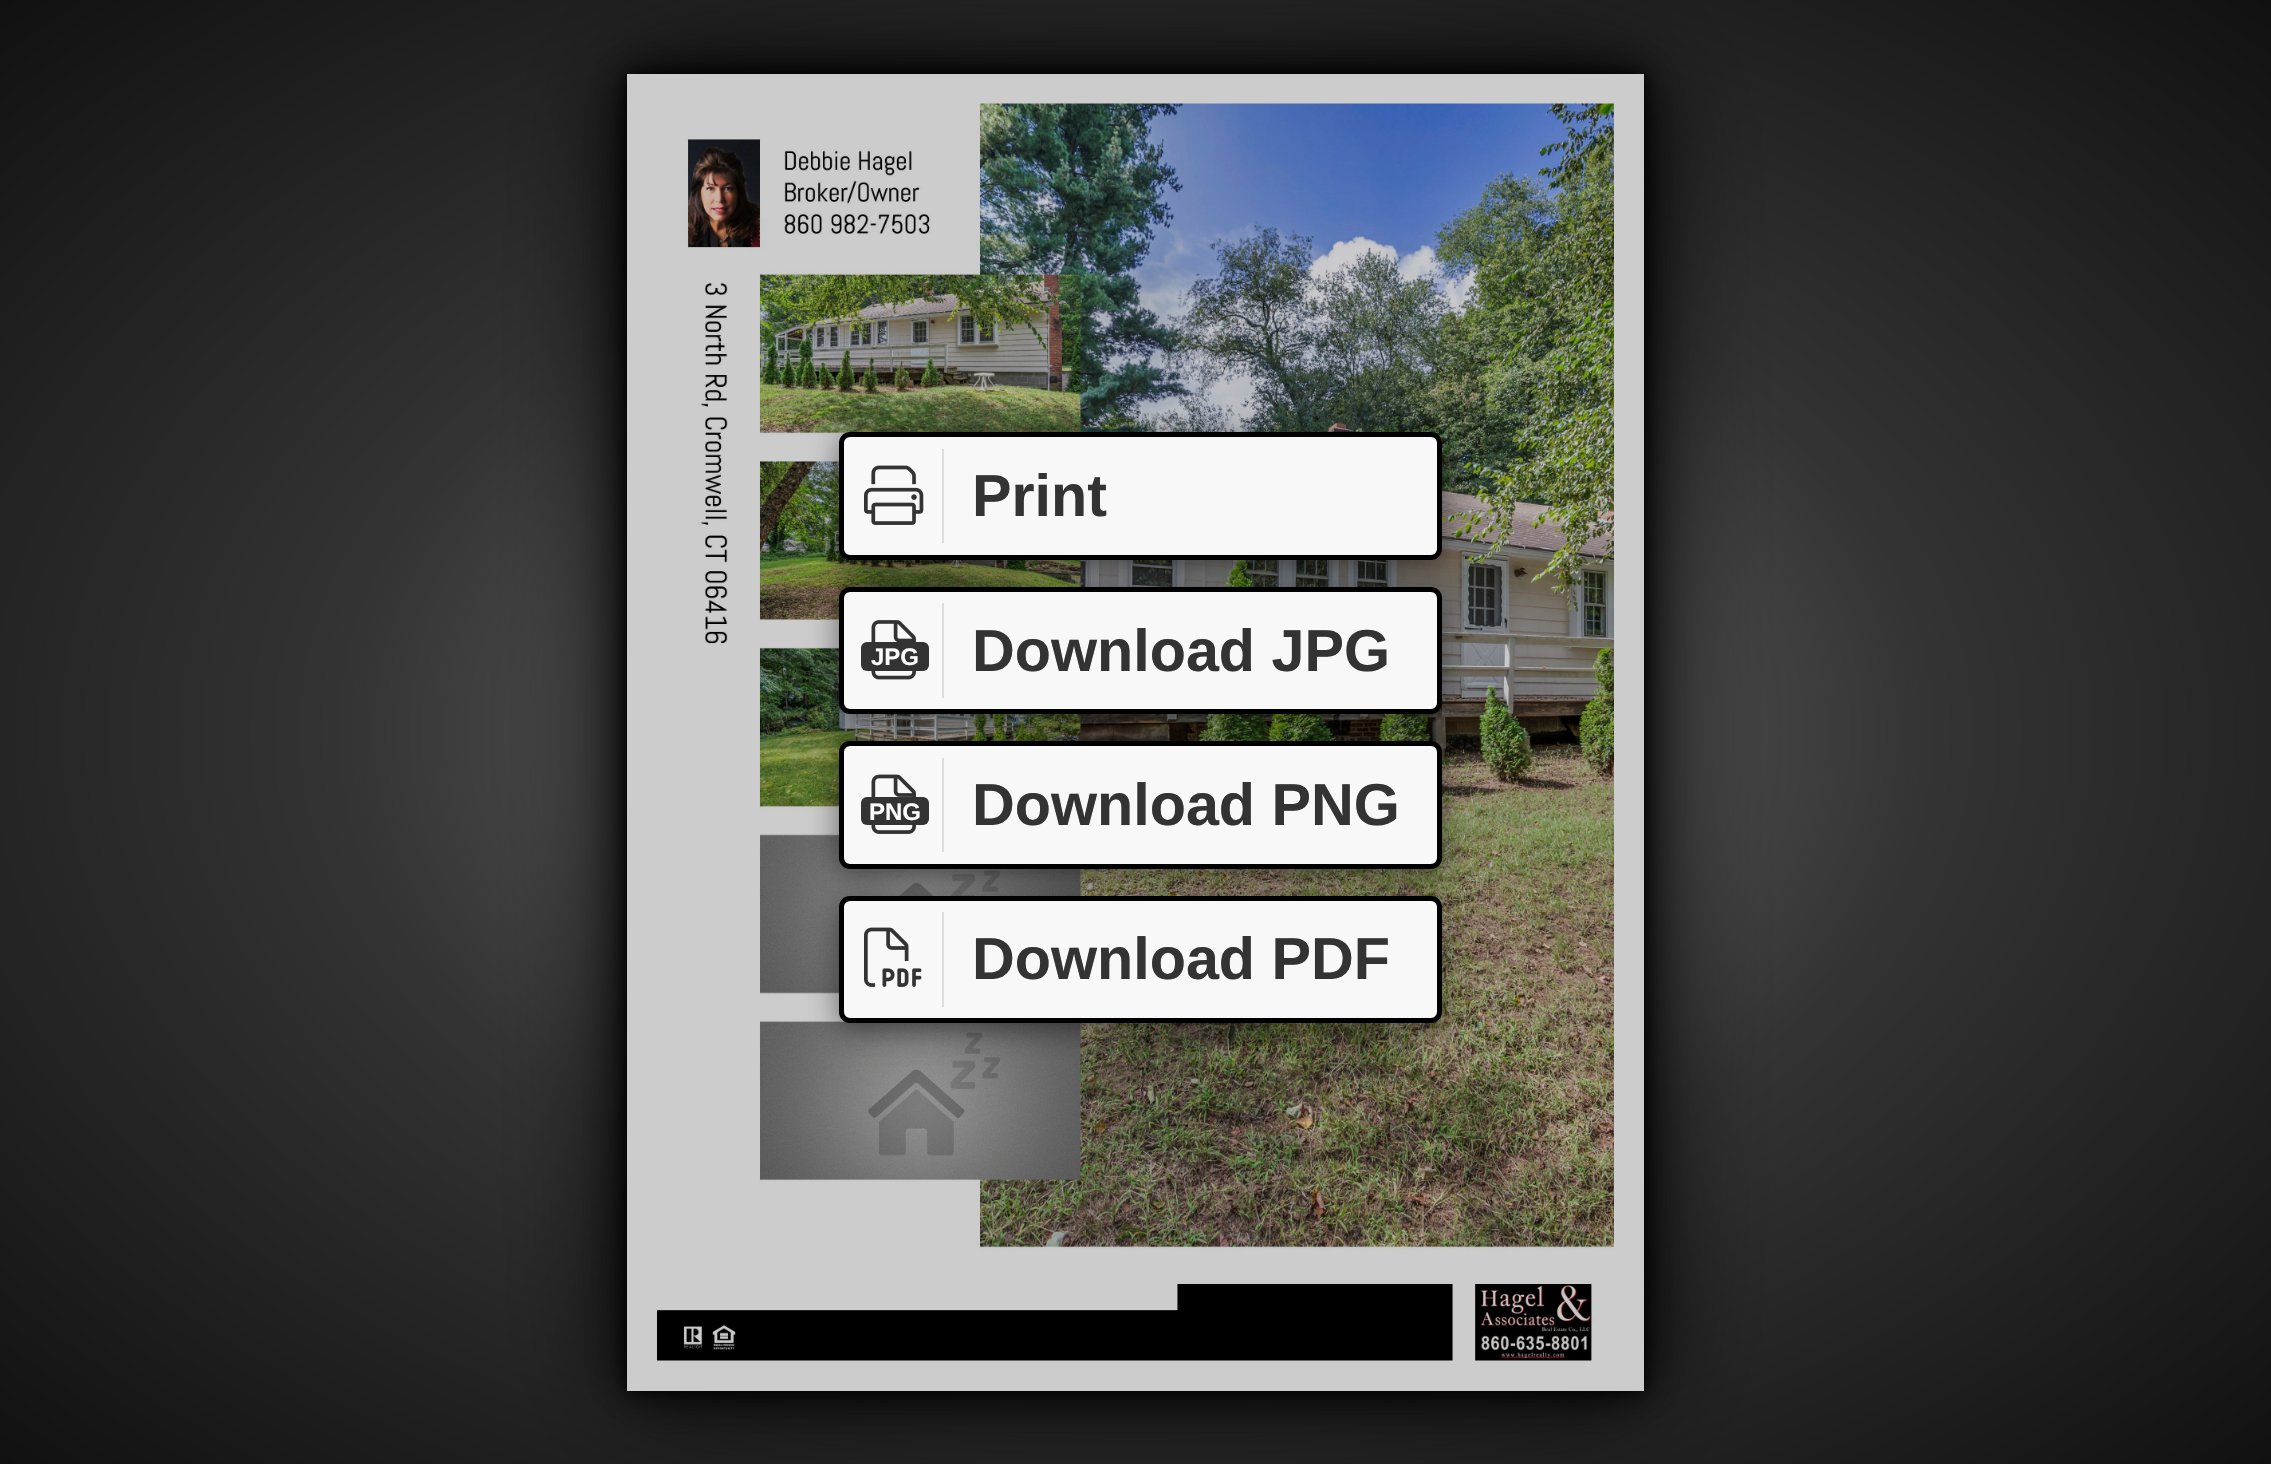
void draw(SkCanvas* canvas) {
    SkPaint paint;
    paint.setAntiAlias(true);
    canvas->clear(0xFFFFFFFF);
    {
        const SkColor colors[] = {0xFF888888, 0xFF555555, 0xFF333333, 0xFF222222, 0xFF111111};
        const float stops[] = {0, 0.25f, 0.5f, 0.75f, 1};
        SkMatrix m = SkMatrix::Translate(1136, 732).preScale(1606, 1035);
        paint.setShader(SkGradientShader::MakeRadial({0, 0}, 1, colors, stops, 5, SkTileMode::kClamp, 0, &m));
        paint.setAlpha(255);
    }
    canvas->drawRect(SkRect::MakeXYWH(0, 0, 2271, 1464), paint);
    paint.setShader(nullptr);
    paint.setColor(0xFF000000);
    paint.setMaskFilter(SkMaskFilter::MakeBlur(kNormal_SkBlurStyle, 60));
    canvas->drawRect(SkRect::MakeXYWH(627, 74, 1017, 1317), paint);
    paint.setMaskFilter(nullptr);
    paint.setMaskFilter(SkMaskFilter::MakeBlur(kNormal_SkBlurStyle, 22.5f));
    canvas->drawRect(SkRect::MakeXYWH(627, 74, 1017, 1317), paint);
    paint.setMaskFilter(nullptr);
    paint.setMaskFilter(SkMaskFilter::MakeBlur(kNormal_SkBlurStyle, 7.5f));
    canvas->drawRect(SkRect::MakeXYWH(627, 74, 1017, 1317), paint);
    paint.setMaskFilter(nullptr);
    paint.setColor(0xFFFFFFFF);
    canvas->drawRect(SkRect::MakeXYWH(627, 74, 1017, 1317), paint);
    canvas->drawImageRect(SkImages::DeferredFromEncodedData(SkData::MakeFromFileName("img1.png")), SkRect::MakeXYWH(657, 103, 957, 1258), SkSamplingOptions());
    paint.setColor(0x33000000);
    canvas->drawRect(SkRect::MakeXYWH(627, 74, 1017, 1317), paint);
    paint.setColor(0x80000000);
    paint.setMaskFilter(SkMaskFilter::MakeBlur(kNormal_SkBlurStyle, 15));
    canvas->drawRoundRect(SkRect::MakeXYWH(839, 438, 603, 128), 11, 11, paint);
    paint.setMaskFilter(nullptr);
    paint.setColor(0xFFF8F8F8);
    canvas->drawRoundRect(SkRect::MakeXYWH(841.5f, 434.5f, 598, 123), 8.5f, 8.5f, paint);
    paint.setStyle(SkPaint::kStroke_Style);
    paint.setStrokeWidth(5);
    paint.setColor(0xFF000000);
    canvas->drawRoundRect(SkRect::MakeXYWH(841.5f, 434.5f, 598, 123), 8.5f, 8.5f, paint);
    paint.setStyle(SkPaint::kFill_Style);
    paint.setColor(0xFFDDDDDD);
    canvas->drawRect(SkRect::MakeXYWH(942, 449, 2, 94), paint);
    canvas->drawImageRect(SkImages::DeferredFromEncodedData(SkData::MakeFromFileName("img2.png")), SkRect::MakeXYWH(864, 465, 60, 60), SkSamplingOptions());
    SkFont font1(fontMgr->matchFamilyStyle("Liberation Sans", SkFontStyle::Bold()), 59.25f);
    font1.setSubpixel(true);
    paint.setColor(0xFF333333);
    canvas->drawString("Print", 972, 516, font1, paint);
    paint.setColor(0x80000000);
    paint.setMaskFilter(SkMaskFilter::MakeBlur(kNormal_SkBlurStyle, 15));
    canvas->drawRoundRect(SkRect::MakeXYWH(839, 593, 603, 127), 11, 11, paint);
    paint.setMaskFilter(nullptr);
    paint.setColor(0xFFF8F8F8);
    canvas->drawRoundRect(SkRect::MakeXYWH(841.5f, 589.5f, 598, 122), 8.5f, 8.5f, paint);
    paint.setStyle(SkPaint::kStroke_Style);
    paint.setColor(0xFF000000);
    canvas->drawRoundRect(SkRect::MakeXYWH(841.5f, 589.5f, 598, 122), 8.5f, 8.5f, paint);
    paint.setStyle(SkPaint::kFill_Style);
    paint.setColor(0xFFDDDDDD);
    canvas->drawRect(SkRect::MakeXYWH(942, 603, 2, 95), paint);
    canvas->drawImageRect(SkImages::DeferredFromEncodedData(SkData::MakeFromFileName("img3.png")), SkRect::MakeXYWH(871, 620, 45, 60), SkSamplingOptions());
    paint.setColor(0xFF333333);
    canvas->drawRoundRect(SkRect::MakeXYWH(861, 642, 68, 29), 6, 6, paint);
    SkFont font2(fontMgr->matchFamilyStyle("Liberation Sans", SkFontStyle::Bold()), 24);
    font2.setSubpixel(true);
    paint.setColor(0xFFFFFFFF);
    canvas->drawString("JPG", 871, 665, font2, paint);
    paint.setColor(0xFF333333);
    canvas->drawString("Download JPG", 972, 671, font1, paint);
    paint.setColor(0x80000000);
    paint.setMaskFilter(SkMaskFilter::MakeBlur(kNormal_SkBlurStyle, 15));
    canvas->drawRoundRect(SkRect::MakeXYWH(839, 747, 603, 128), 11, 11, paint);
    paint.setMaskFilter(nullptr);
    paint.setColor(0xFFF8F8F8);
    canvas->drawRoundRect(SkRect::MakeXYWH(841.5f, 743.5f, 598, 123), 8.5f, 8.5f, paint);
    paint.setStyle(SkPaint::kStroke_Style);
    paint.setColor(0xFF000000);
    canvas->drawRoundRect(SkRect::MakeXYWH(841.5f, 743.5f, 598, 123), 8.5f, 8.5f, paint);
    paint.setStyle(SkPaint::kFill_Style);
    paint.setColor(0xFFDDDDDD);
    canvas->drawRect(SkRect::MakeXYWH(942, 758, 2, 94), paint);
    canvas->drawImageRect(SkImages::DeferredFromEncodedData(SkData::MakeFromFileName("img4.png")), SkRect::MakeXYWH(871, 774, 45, 60), SkSamplingOptions());
    paint.setColor(0xFF333333);
    canvas->drawRoundRect(SkRect::MakeXYWH(861, 797, 68, 28), 6, 6, paint);
    paint.setColor(0xFFFFFFFF);
    canvas->drawString("PNG", 869, 820, font2, paint);
    paint.setColor(0xFF333333);
    canvas->drawString("Download PNG", 972, 825, font1, paint);
    paint.setColor(0x80000000);
    paint.setMaskFilter(SkMaskFilter::MakeBlur(kNormal_SkBlurStyle, 15));
    canvas->drawRoundRect(SkRect::MakeXYWH(839, 902, 603, 127), 11, 11, paint);
    paint.setMaskFilter(nullptr);
    paint.setColor(0xFFF8F8F8);
    canvas->drawRoundRect(SkRect::MakeXYWH(841.5f, 898.5f, 598, 122), 8.5f, 8.5f, paint);
    paint.setStyle(SkPaint::kStroke_Style);
    paint.setColor(0xFF000000);
    canvas->drawRoundRect(SkRect::MakeXYWH(841.5f, 898.5f, 598, 122), 8.5f, 8.5f, paint);
    paint.setStyle(SkPaint::kFill_Style);
    paint.setColor(0xFFDDDDDD);
    canvas->drawRect(SkRect::MakeXYWH(942, 912, 2, 95), paint);
    canvas->drawImageRect(SkImages::DeferredFromEncodedData(SkData::MakeFromFileName("img5.png")), SkRect::MakeXYWH(864, 927, 58, 60), SkSamplingOptions());
    paint.setColor(0xFF333333);
    canvas->drawString("Download PDF", 972, 979, font1, paint);
}
